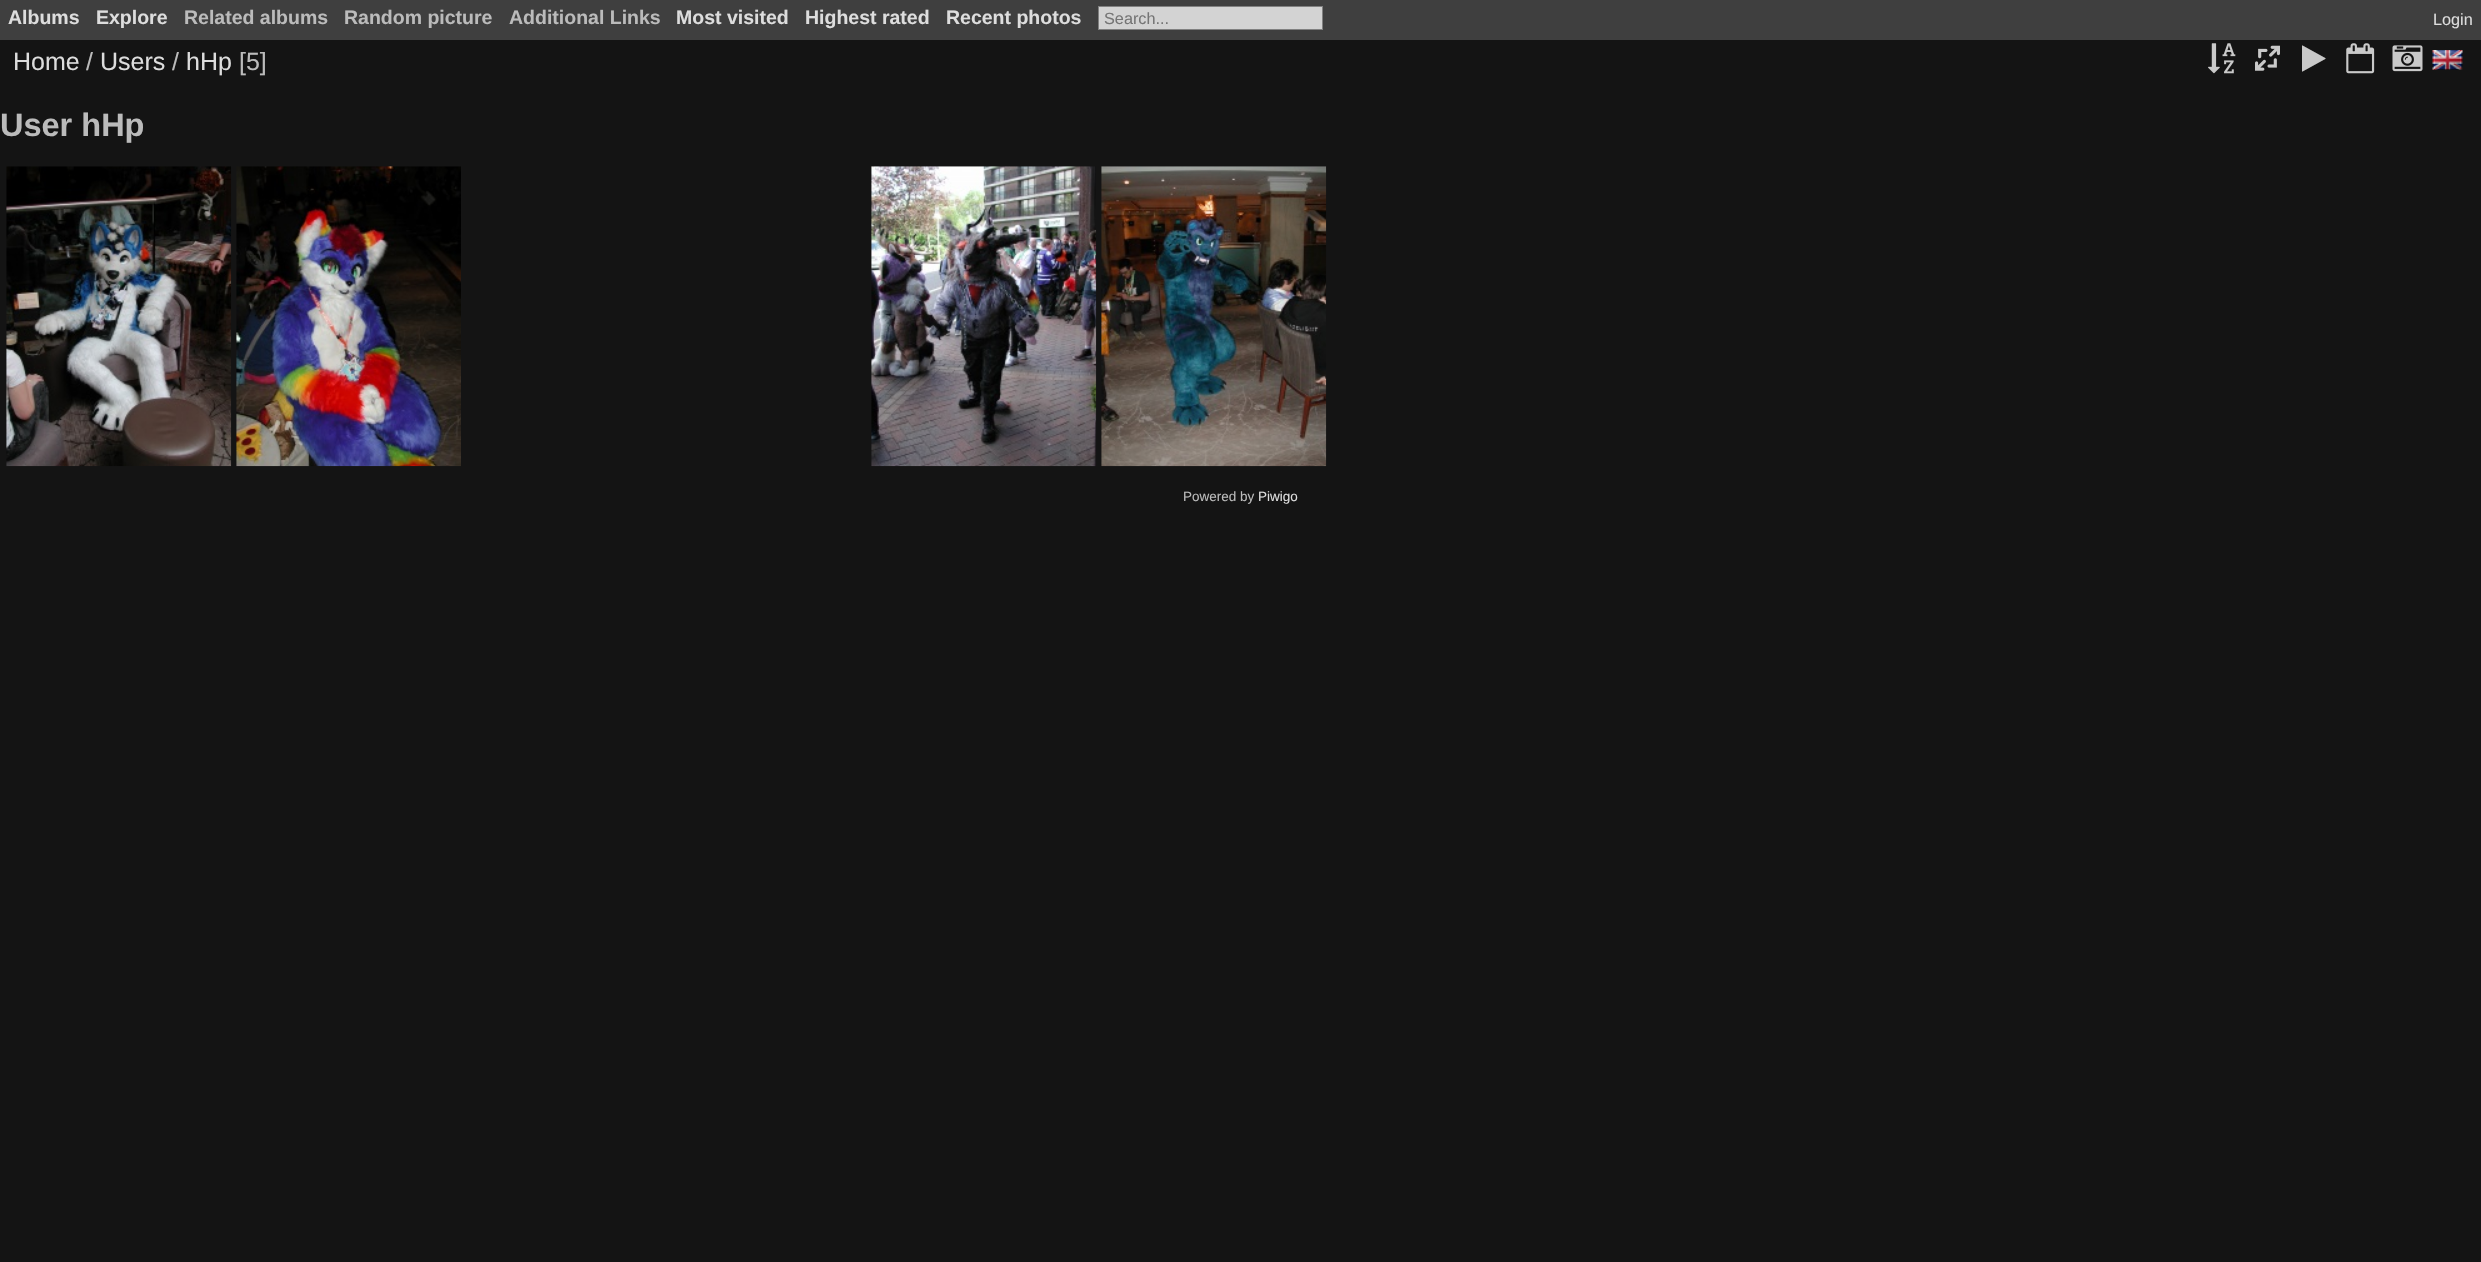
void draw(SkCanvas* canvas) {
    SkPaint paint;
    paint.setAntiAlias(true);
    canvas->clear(0xFF141414);
    paint.setColor(0xFF3F3F3F);
    canvas->drawRect(SkRect::MakeXYWH(0, 0, 2481, 40), paint);
    SkFont font1(fontMgr->matchFamilyStyle("Liberation Sans", SkFontStyle::Bold()), 19.5f);
    font1.setSubpixel(true);
    paint.setColor(0xFFDDDDDD);
    canvas->drawString("Albums", 8, 24, font1, paint);
    canvas->drawString("Explore", 96, 24, font1, paint);
    paint.setColor(0xFFBBBBBB);
    canvas->drawString("Related albums", 184, 24, font1, paint);
    canvas->drawString("Random picture", 344, 24, font1, paint);
    canvas->drawString("Additional Links", 509, 24, font1, paint);
    paint.setColor(0xFFDDDDDD);
    canvas->drawString("Most visited", 676, 24, font1, paint);
    canvas->drawString("Highest rated", 805, 24, font1, paint);
    canvas->drawString("Recent photos", 946, 24, font1, paint);
    paint.setColor(0xFFD3D3D3);
    canvas->drawRect(SkRect::MakeXYWH(1098.5f, 6.5f, 224, 23), paint);
    paint.setStyle(SkPaint::kStroke_Style);
    paint.setStrokeWidth(1);
    paint.setColor(0xFF808080);
    canvas->drawRect(SkRect::MakeXYWH(1098.5f, 6.5f, 224, 23), paint);
    SkFont font2(fontMgr->matchFamilyStyle("Liberation Sans", SkFontStyle::Normal()), 16.25f);
    font2.setSubpixel(true);
    paint.setStyle(SkPaint::kFill_Style);
    paint.setColor(0xFF757575);
    canvas->drawString("Search...", 1104, 24, font2, paint);
    paint.setColor(0xFFDDDDDD);
    canvas->drawString("Login", 2433, 25, font2, paint);
    SkFont font3(fontMgr->matchFamilyStyle("Liberation Sans", SkFontStyle::Normal()), 25);
    font3.setSubpixel(true);
    canvas->drawString("Home", 13, 70, font3, paint);
    paint.setColor(0xFFBBBBBB);
    canvas->drawString("/", 86, 70, font3, paint);
    paint.setColor(0xFFDDDDDD);
    canvas->drawString("Users", 100, 70, font3, paint);
    paint.setColor(0xFFBBBBBB);
    canvas->drawString("/", 172, 70, font3, paint);
    paint.setColor(0xFFDDDDDD);
    canvas->drawString("hHp", 186, 70, font3, paint);
    paint.setColor(0xFFBBBBBB);
    canvas->drawString("[5]", 239, 70, font3, paint);
    canvas->drawImageRect(SkImages::DeferredFromEncodedData(SkData::MakeFromFileName("img1.png")), SkRect::MakeXYWH(2208, 43, 28, 31), SkSamplingOptions());
    canvas->drawImageRect(SkImages::DeferredFromEncodedData(SkData::MakeFromFileName("img2.png")), SkRect::MakeXYWH(2255, 45, 25, 26), SkSamplingOptions());
    SkFont font4(fontMgr->matchFamilyStyle("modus", SkFontStyle::Normal()), 30);
    font4.setSubpixel(true);
    paint.setColor(0xFFC9C9C9);
    canvas->drawString("▶", 2302, 69, font4, paint);
    canvas->drawImageRect(SkImages::DeferredFromEncodedData(SkData::MakeFromFileName("img3.png")), SkRect::MakeXYWH(2346, 43, 29, 31), SkSamplingOptions());
    canvas->drawImageRect(SkImages::DeferredFromEncodedData(SkData::MakeFromFileName("img4.png")), SkRect::MakeXYWH(2392, 45, 31, 27), SkSamplingOptions());
    canvas->drawImageRect(SkImages::DeferredFromEncodedData(SkData::MakeFromFileName("img5.png")), SkRect::MakeXYWH(2432, 50, 31, 20), SkSamplingOptions());
    SkFont font5(fontMgr->matchFamilyStyle("Liberation Sans", SkFontStyle::Bold()), 32.5f);
    font5.setSubpixel(true);
    paint.setColor(0xFFBBBBBB);
    canvas->drawString("User hHp", 0, 136, font5, paint);
    canvas->drawImageRect(SkImages::DeferredFromEncodedData(SkData::MakeFromFileName("img6.png")), SkRect::MakeXYWH(6, 166, 226, 301), SkSamplingOptions());
    canvas->drawImageRect(SkImages::DeferredFromEncodedData(SkData::MakeFromFileName("img7.png")), SkRect::MakeXYWH(236, 166, 225, 301), SkSamplingOptions());
    canvas->drawImageRect(SkImages::DeferredFromEncodedData(SkData::MakeFromFileName("img8.png")), SkRect::MakeXYWH(871, 166, 226, 301), SkSamplingOptions());
    canvas->drawImageRect(SkImages::DeferredFromEncodedData(SkData::MakeFromFileName("img9.png")), SkRect::MakeXYWH(1101, 166, 226, 301), SkSamplingOptions());
    SkFont font6(fontMgr->matchFamilyStyle("Liberation Sans", SkFontStyle::Normal()), 13.5f);
    font6.setSubpixel(true);
    canvas->drawString("Powered by", 1183, 501, font6, paint);
    paint.setColor(0xFFDDDDDD);
    canvas->drawString("Piwigo", 1258, 501, font6, paint);
}
